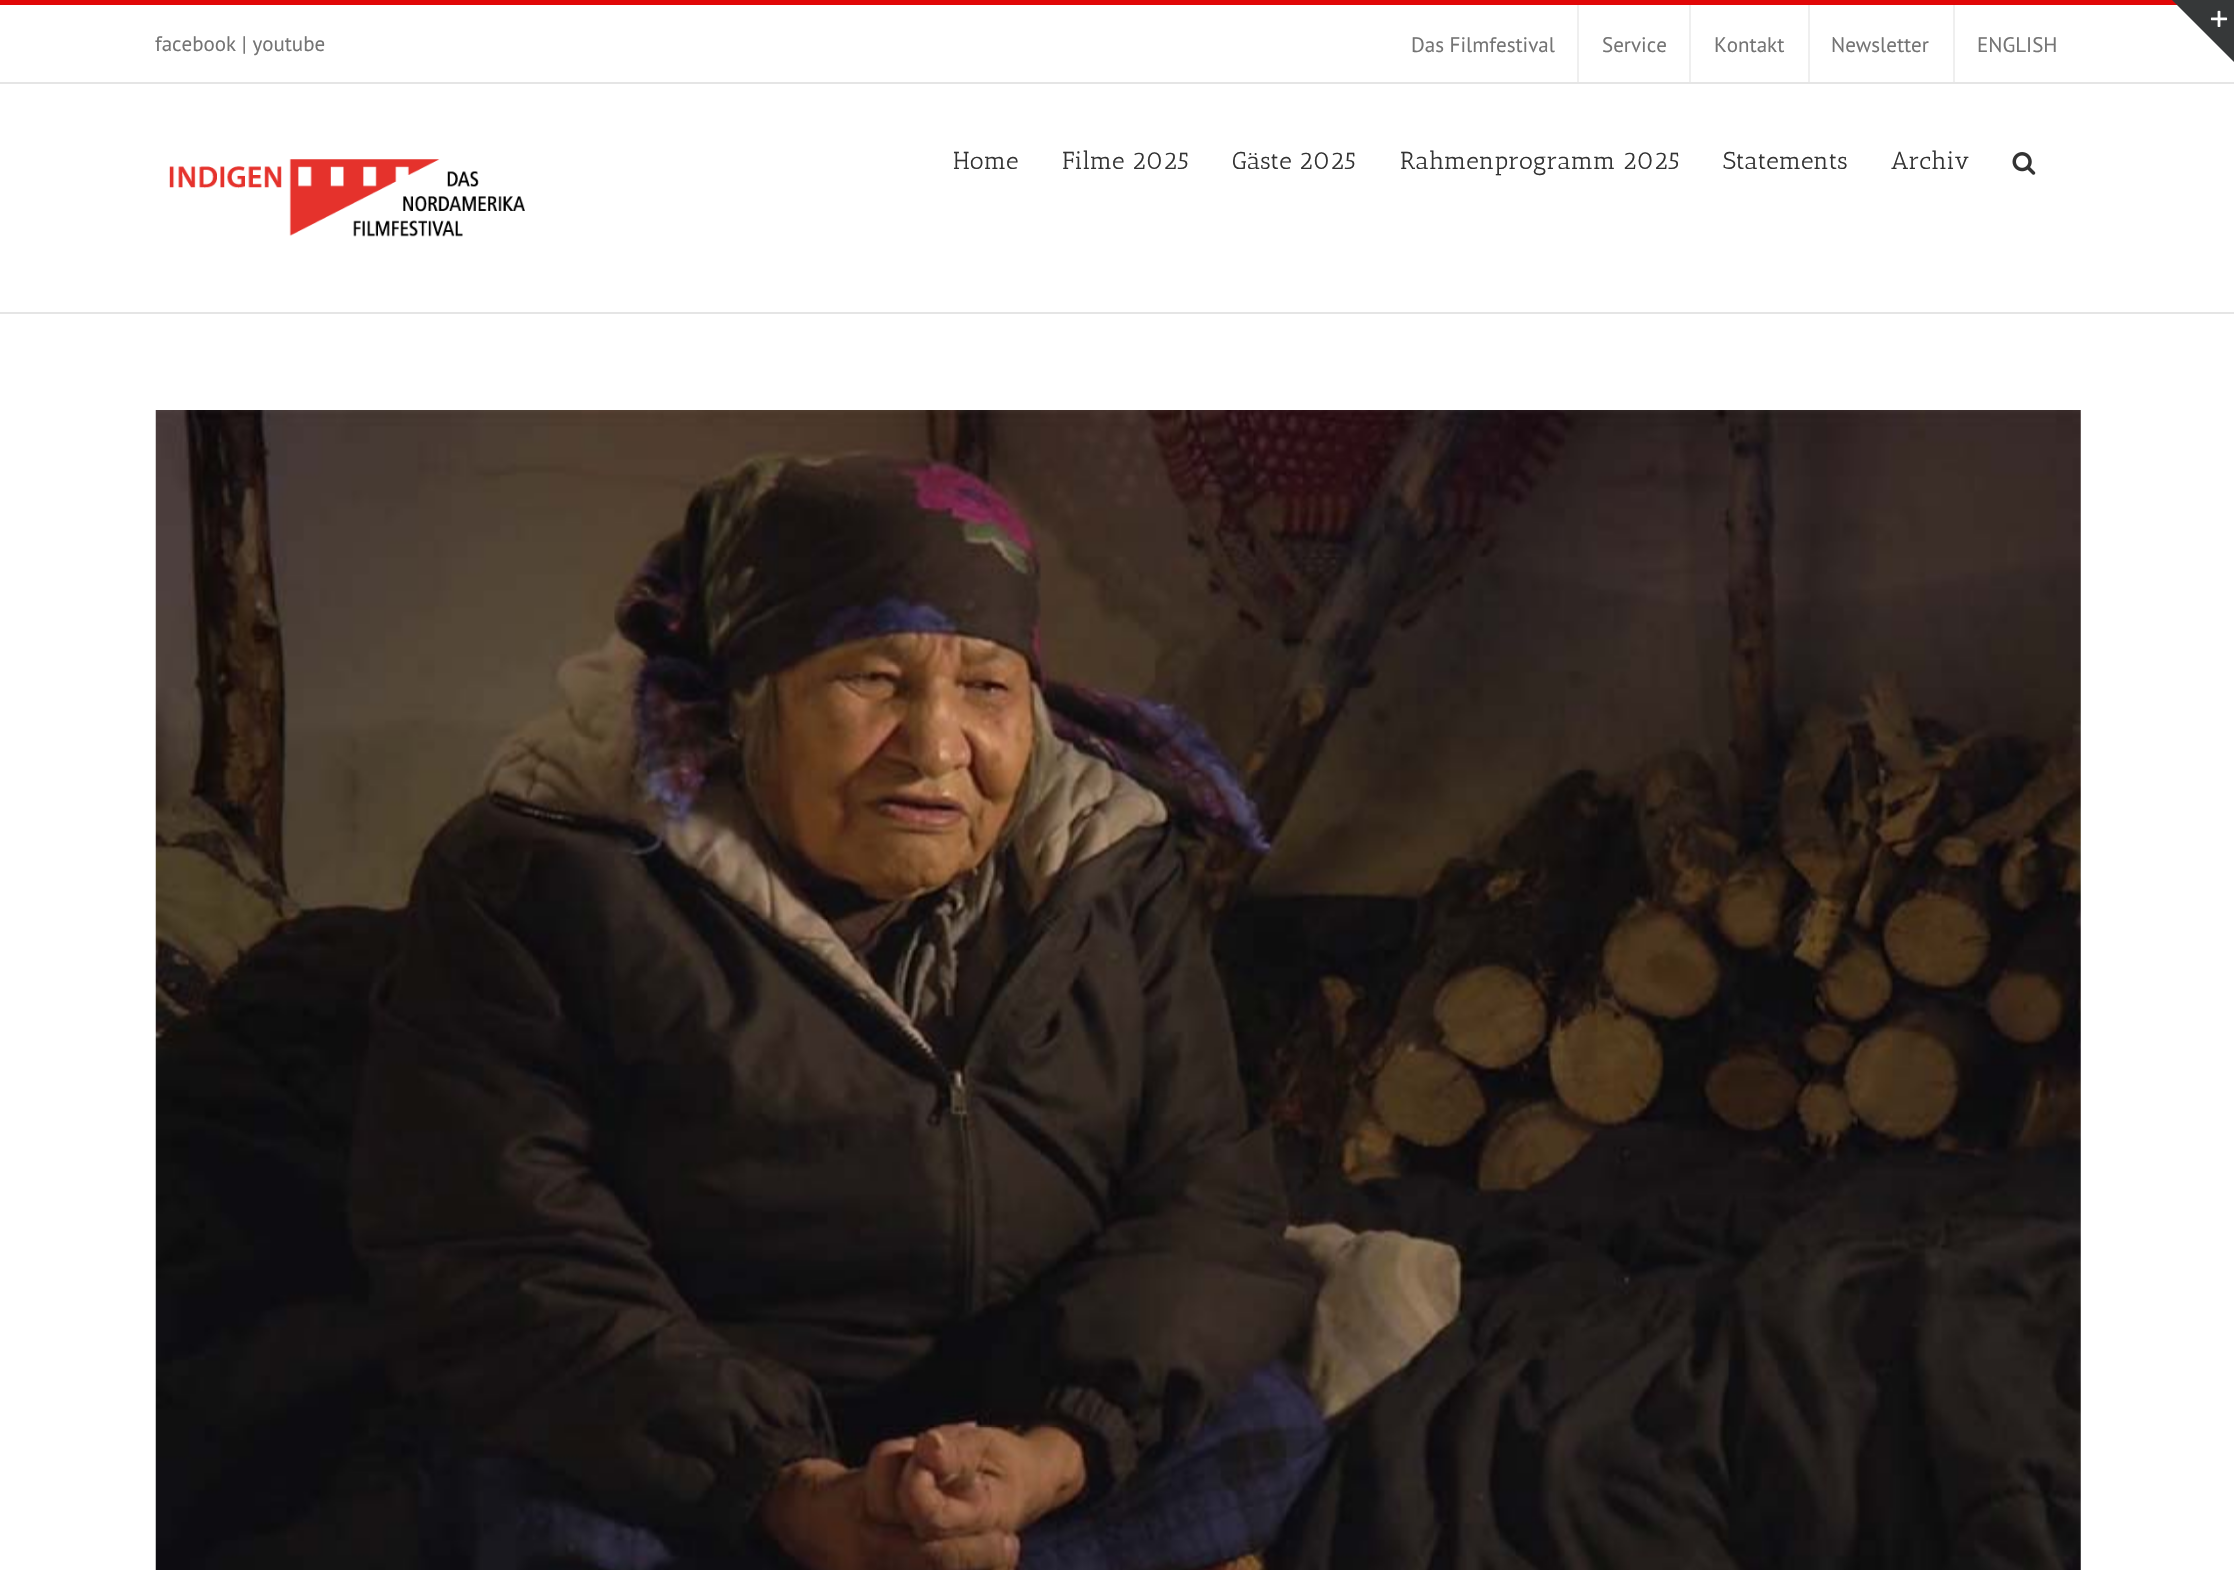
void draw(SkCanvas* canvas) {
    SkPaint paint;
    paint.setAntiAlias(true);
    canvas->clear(0xFFFFFFFF);
    paint.setColor(0xFFE10707);
    canvas->drawRect(SkRect::MakeXYWH(0, 0, 2177, 5), paint);
    paint.setColor(0xFFE5E5E5);
    canvas->drawRect(SkRect::MakeXYWH(0, 82, 2234, 2), paint);
    SkFont font1(fontMgr->matchFamilyStyle("PT Sans", SkFontStyle::Normal()), 21);
    font1.setSubpixel(true);
    paint.setColor(0xFF747474);
    canvas->drawString("facebook | youtube", 155, 51, font1, paint);
    canvas->drawString("Das Filmfestival", 1411, 52, font1, paint);
    paint.setColor(0xFFEFEFEF);
    canvas->drawRect(SkRect::MakeXYWH(1577, 5, 2, 77), paint);
    paint.setColor(0xFF747474);
    canvas->drawString("Service", 1602, 52, font1, paint);
    paint.setColor(0xFFEFEFEF);
    canvas->drawRect(SkRect::MakeXYWH(1689, 5, 2, 77), paint);
    paint.setColor(0xFF747474);
    canvas->drawString("Kontakt", 1714, 52, font1, paint);
    paint.setColor(0xFFEFEFEF);
    canvas->drawRect(SkRect::MakeXYWH(1808, 5, 2, 77), paint);
    paint.setColor(0xFF747474);
    canvas->drawString("Newsletter", 1831, 52, font1, paint);
    paint.setColor(0xFFEFEFEF);
    canvas->drawRect(SkRect::MakeXYWH(1953, 5, 2, 77), paint);
    paint.setColor(0xFF747474);
    canvas->drawString("ENGLISH", 1977, 52, font1, paint);
    paint.setColor(0xFFE5E5E5);
    canvas->drawRect(SkRect::MakeXYWH(0, 312, 2234, 2), paint);
    canvas->drawImageRect(SkImages::DeferredFromEncodedData(SkData::MakeFromFileName("img1.png")), SkRect::MakeXYWH(169, 159, 356, 78), SkSamplingOptions());
    SkFont font2(fontMgr->matchFamilyStyle("Antic Slab", SkFontStyle::Normal()), 24.5f);
    font2.setSubpixel(true);
    paint.setColor(0xFF333333);
    canvas->drawString("Home", 953, 169, font2, paint);
    canvas->drawString("Filme 2025", 1062, 169, font2, paint);
    canvas->drawString("Gäste 2025", 1232, 169, font2, paint);
    canvas->drawString("Rahmenprogramm 2025", 1400, 169, font2, paint);
    canvas->drawString("Statements", 1723, 169, font2, paint);
    canvas->drawString("Archiv", 1891, 169, font2, paint);
    canvas->drawImageRect(SkImages::DeferredFromEncodedData(SkData::MakeFromFileName("img2.png")), SkRect::MakeXYWH(2012, 152, 24, 23), SkSamplingOptions());
    paint.setColor(0xFF363839);
    canvas->drawPath(SkPathBuilder().moveTo(2172, 0).lineTo(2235, 0).lineTo(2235, 63).close().detach(), paint);
    canvas->drawImageRect(SkImages::DeferredFromEncodedData(SkData::MakeFromFileName("img3.png")), SkRect::MakeXYWH(2210, 10, 18, 17), SkSamplingOptions());
    canvas->drawImageRect(SkImages::DeferredFromEncodedData(SkData::MakeFromFileName("img4.png")), SkRect::MakeXYWH(155, 410, 1926, 1160), SkSamplingOptions());
}
